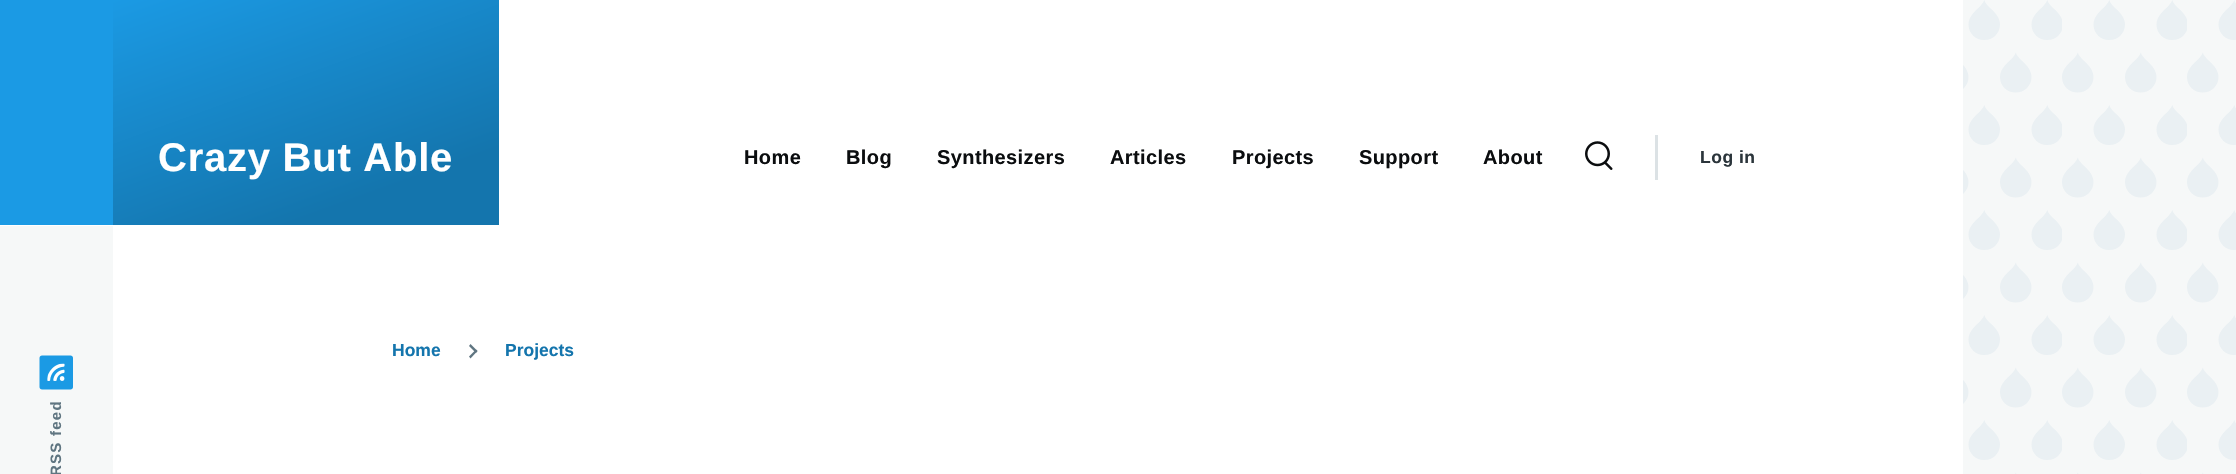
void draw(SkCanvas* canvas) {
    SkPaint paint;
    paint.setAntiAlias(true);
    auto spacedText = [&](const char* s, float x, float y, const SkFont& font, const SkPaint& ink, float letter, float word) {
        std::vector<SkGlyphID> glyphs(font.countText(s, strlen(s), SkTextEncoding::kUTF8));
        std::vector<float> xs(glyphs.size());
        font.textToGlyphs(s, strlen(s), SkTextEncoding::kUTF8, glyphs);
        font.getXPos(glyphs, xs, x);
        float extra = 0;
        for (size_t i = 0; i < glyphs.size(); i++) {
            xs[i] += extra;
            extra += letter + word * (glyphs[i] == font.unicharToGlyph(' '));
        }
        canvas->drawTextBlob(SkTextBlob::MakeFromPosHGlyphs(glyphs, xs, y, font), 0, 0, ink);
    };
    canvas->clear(0xFFF6F8F8);
    canvas->drawImageRect(SkImages::DeferredFromEncodedData(SkData::MakeFromFileName("img1.png")), SkRect::MakeXYWH(1963, 0, 273, 474), SkSamplingOptions());
    paint.setColor(0xFFFFFFFF);
    canvas->drawRect(SkRect::MakeXYWH(0, 0, 1963, 474), paint);
    paint.setColor(0xFF1B9AE4);
    canvas->drawRect(SkRect::MakeXYWH(0, 0, 113, 225), paint);
    {
        const SkColor colors[] = {0xFF1B9AE4, 0xFF1475AD};
        const float stops[] = {0, 0.79f};
        const SkPoint ends[] = {{247, -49}, {364, 274}};
        paint.setShader(SkGradientShader::MakeLinear(ends, colors, stops, 2, SkTileMode::kClamp));
        paint.setAlpha(255);
    }
    canvas->drawRect(SkRect::MakeXYWH(113, 0, 386, 225), paint);
    SkFont font1(fontMgr->matchFamilyStyle("Liberation Sans", SkFontStyle::Bold()), 40);
    font1.setSubpixel(true);
    paint.setShader(nullptr);
    paint.setColor(0xFFFFFFFF);
    spacedText("Crazy But Able", 158, 171, font1, paint, 0.75f, 0);
    SkFont font2(fontMgr->matchFamilyStyle("Liberation Sans", SkFontStyle::Bold()), 20);
    font2.setSubpixel(true);
    paint.setColor(0xFF0B0D0F);
    spacedText("Home", 744, 164, font2, paint, 0.4f, 0);
    spacedText("Blog", 846, 164, font2, paint, 0.4f, 0);
    spacedText("Synthesizers", 937, 164, font2, paint, 0.4f, 0);
    spacedText("Articles", 1110, 164, font2, paint, 0.4f, 0);
    spacedText("Projects", 1232, 164, font2, paint, 0.4f, 0);
    spacedText("Support", 1359, 164, font2, paint, 0.4f, 0);
    spacedText("About", 1483, 164, font2, paint, 0.4f, 0);
    canvas->drawImageRect(SkImages::DeferredFromEncodedData(SkData::MakeFromFileName("img2.png")), SkRect::MakeXYWH(1585, 141, 28, 29), SkSamplingOptions());
    paint.setColor(0xFFDCE2E5);
    canvas->drawRect(SkRect::MakeXYWH(1655, 135, 3, 45), paint);
    SkFont font3(fontMgr->matchFamilyStyle("Liberation Sans", SkFontStyle::Bold()), 17.5f);
    font3.setSubpixel(true);
    paint.setColor(0xFF2B353B);
    spacedText("Log in", 1700, 163, font3, paint, 0.5f, 0);
    paint.setColor(0xFF1475AD);
    canvas->drawString("Home", 392, 356, font3, paint);
    paint.setColor(0xFF5F7581);
    canvas->drawPath(SkPathBuilder().moveTo(470.5f, 344).lineTo(477.5f, 351).lineTo(476, 353).lineTo(469, 346).close().detach(), paint);
    canvas->drawPath(SkPathBuilder().moveTo(476, 349.5f).lineTo(477.5f, 351).lineTo(470.5f, 358.5f).lineTo(469, 356.5f).close().detach(), paint);
    paint.setColor(0xFF1475AD);
    canvas->drawString("Projects", 505, 356, font3, paint);
    paint.setColor(0xFFF6F8F8);
    canvas->drawRect(SkRect::MakeXYWH(0, 226, 113, 248), paint);
    paint.setColor(0xFF1B9AE4);
    canvas->drawPath(SkPathBuilder().moveTo(39.5f, 387).lineTo(39.5f, 358).cubicTo(39.5f, 356.5f, 40.5f, 355.5f, 42, 355.5f).lineTo(70.5f, 355.5f).cubicTo(72, 355.5f, 73, 356.5f, 73, 358).lineTo(73, 387).cubicTo(73, 388.5f, 72, 389.5f, 70.5f, 389.5f).lineTo(42, 389.5f).cubicTo(40.5f, 389.5f, 39.5f, 388.5f, 39.5f, 387).close().detach(), paint);
    canvas->drawImageRect(SkImages::DeferredFromEncodedData(SkData::MakeFromFileName("img3.png")), SkRect::MakeXYWH(47, 363, 18, 18), SkSamplingOptions());
    SkFont font4(fontMgr->matchFamilyStyle("Liberation Sans", SkFontStyle::Bold()), 15);
    font4.setSubpixel(true);
    paint.setColor(0xFF5F7581);
    canvas->save();
    canvas->rotate(-90, 61, 476);
    spacedText("RSS feed", 61, 476, font4, paint, 1.25f, 0);
    canvas->restore();
}
